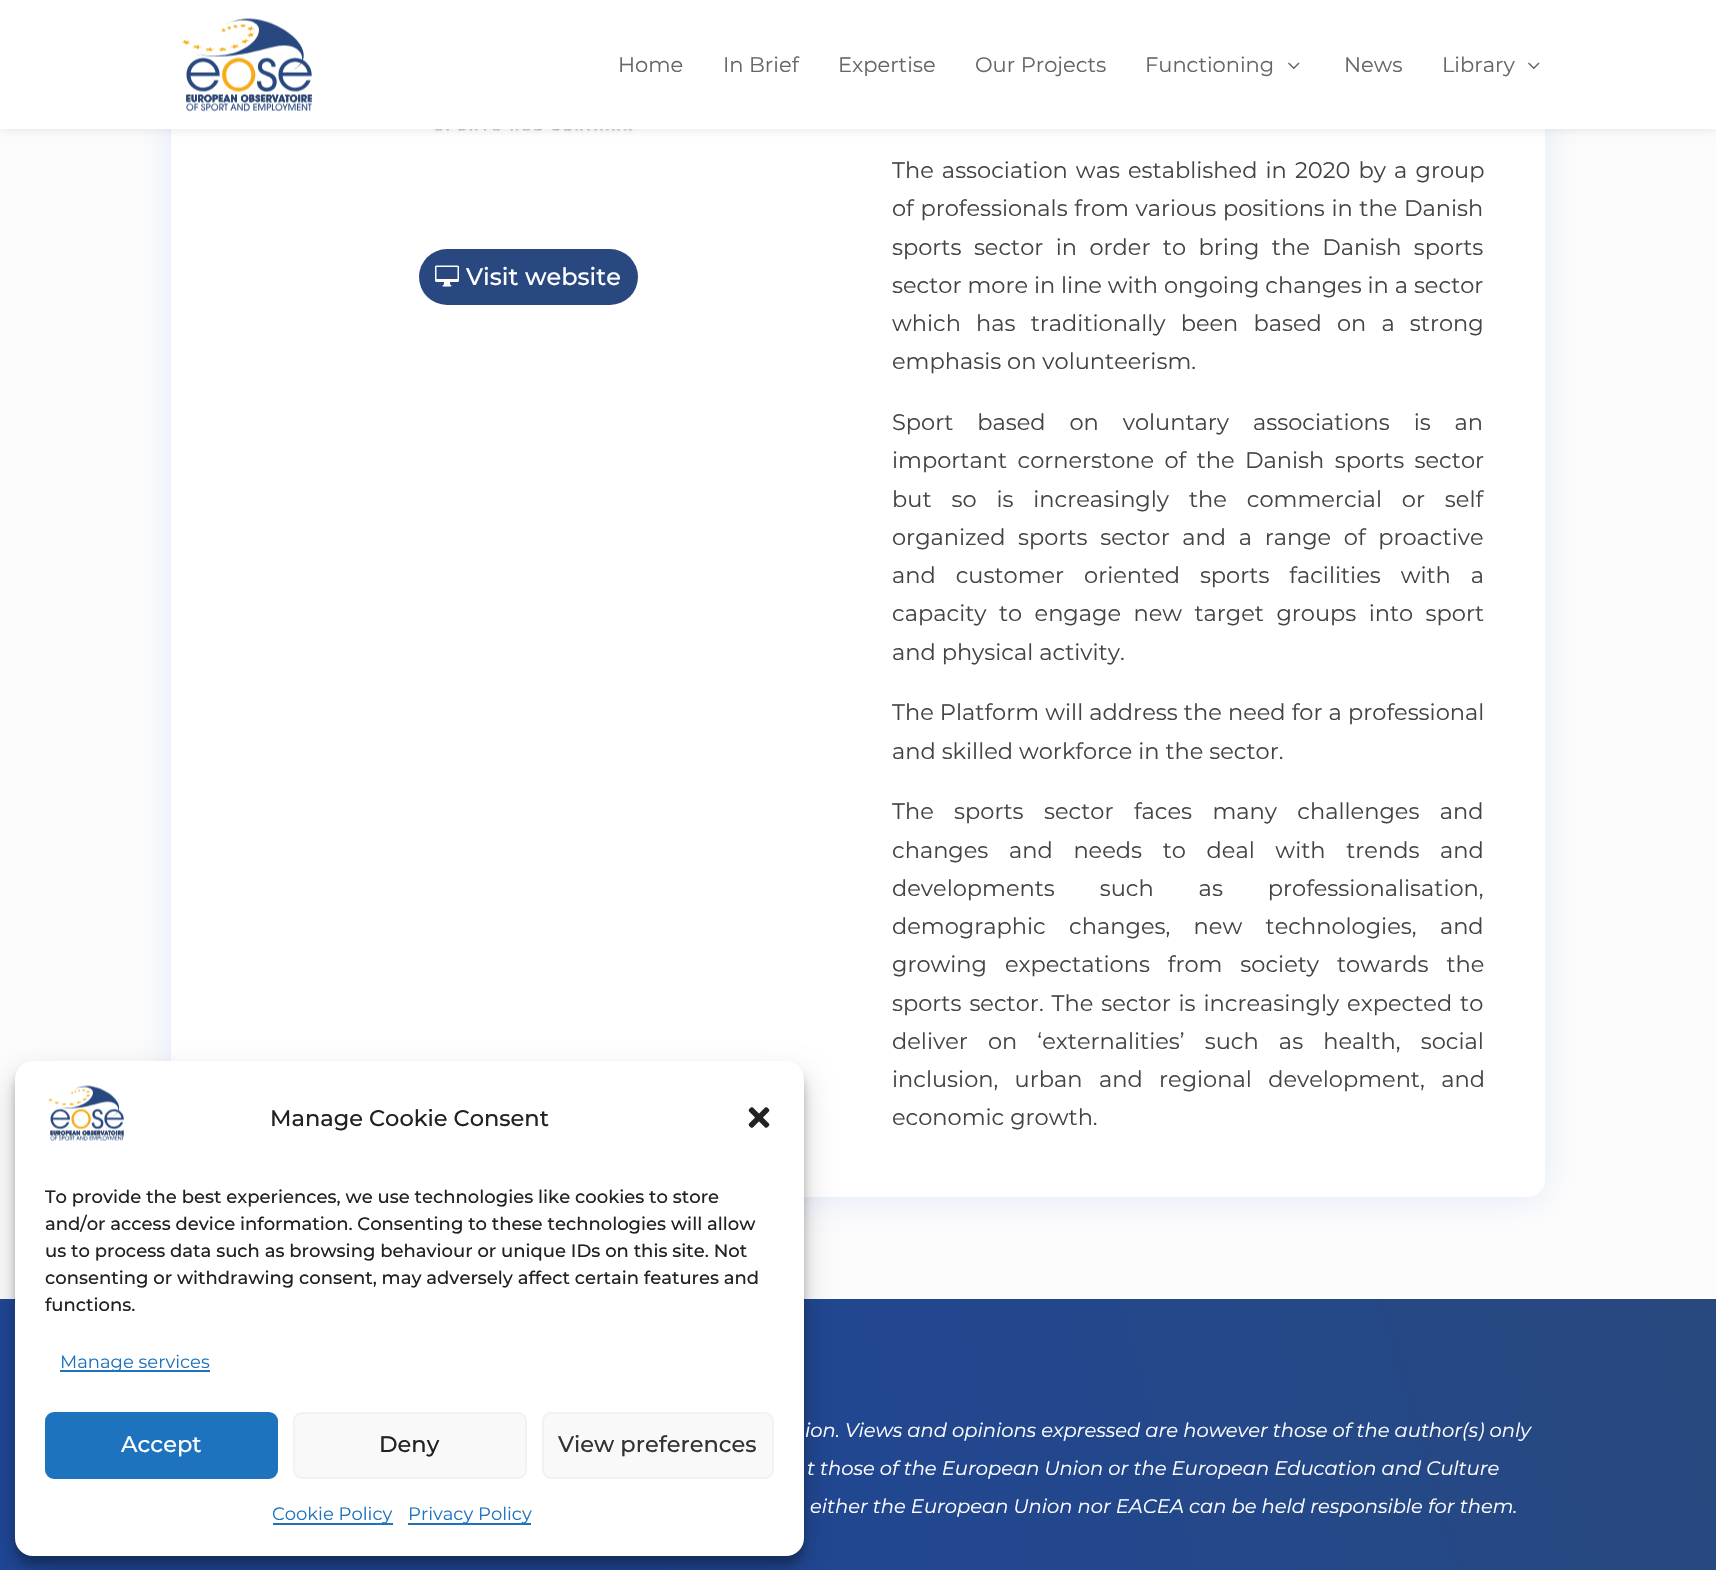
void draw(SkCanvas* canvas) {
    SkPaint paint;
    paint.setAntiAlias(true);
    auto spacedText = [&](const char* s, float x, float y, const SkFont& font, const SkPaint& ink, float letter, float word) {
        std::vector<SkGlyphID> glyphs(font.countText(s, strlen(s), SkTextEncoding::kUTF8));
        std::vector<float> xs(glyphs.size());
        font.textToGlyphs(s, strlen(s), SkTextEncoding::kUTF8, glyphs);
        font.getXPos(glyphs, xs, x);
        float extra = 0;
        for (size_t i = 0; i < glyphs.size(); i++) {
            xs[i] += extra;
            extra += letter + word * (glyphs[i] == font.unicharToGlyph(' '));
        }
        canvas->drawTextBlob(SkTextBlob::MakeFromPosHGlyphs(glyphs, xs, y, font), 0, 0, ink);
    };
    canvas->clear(0xFFFCFCFC);
    paint.setColor(0x1C0D5EE0);
    paint.setMaskFilter(SkMaskFilter::MakeBlur(kNormal_SkBlurStyle, 19));
    canvas->drawRoundRect(SkRect::MakeXYWH(171, -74, 1374, 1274), 17, 17, paint);
    paint.setMaskFilter(nullptr);
    paint.setColor(0xFFFFFFFF);
    canvas->drawRoundRect(SkRect::MakeXYWH(171, -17, 1374, 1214), 17, 17, paint);
    {
        const SkColor colors[] = {0xFF1F4796, 0xFF28487F};
        const float stops[] = {0.36f, 1};
        const SkPoint ends[] = {{-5.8f, 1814}, {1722, 1319}};
        paint.setShader(SkGradientShader::MakeLinear(ends, colors, stops, 2, SkTileMode::kClamp));
        paint.setAlpha(255);
    }
    canvas->drawRect(SkRect::MakeXYWH(0, 1299, 1716, 271), paint);
    paint.setShader(nullptr);
    paint.setColor(0x3B000000);
    paint.setMaskFilter(SkMaskFilter::MakeBlur(kNormal_SkBlurStyle, 4.5f));
    canvas->drawRoundRect(SkRect::MakeXYWH(15, 1070, 789, 495), 18, 18, paint);
    paint.setMaskFilter(nullptr);
    paint.setColor(0x30000000);
    paint.setMaskFilter(SkMaskFilter::MakeBlur(kNormal_SkBlurStyle, 15));
    canvas->drawRoundRect(SkRect::MakeXYWH(15, 1076, 789, 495), 18, 18, paint);
    paint.setMaskFilter(nullptr);
    paint.setColor(0xFFFFFFFF);
    canvas->drawRoundRect(SkRect::MakeXYWH(15, 1061, 789, 495), 18, 18, paint);
    canvas->drawImageRect(SkImages::DeferredFromEncodedData(SkData::MakeFromFileName("img1.png")), SkRect::MakeXYWH(47, 1085, 77, 56), SkSamplingOptions());
    SkFont font1(fontMgr->matchFamilyStyle("Montserrat", SkFontStyle(500, SkFontStyle::kNormal_Width, SkFontStyle::kUpright_Slant)), 22.5f);
    font1.setSubpixel(true);
    paint.setColor(0xFF222222);
    canvas->drawString("Manage Cookie Consent", 270, 1126, font1, paint);
    canvas->drawImageRect(SkImages::DeferredFromEncodedData(SkData::MakeFromFileName("img2.png")), SkRect::MakeXYWH(748, 1107, 22, 21), SkSamplingOptions());
    SkFont font2(fontMgr->matchFamilyStyle("Montserrat", SkFontStyle(500, SkFontStyle::kNormal_Width, SkFontStyle::kUpright_Slant)), 18);
    font2.setSubpixel(true);
    canvas->drawString("To provide the best experiences, we use technologies like cookies to store", 45, 1203, font2, paint);
    canvas->drawString("and/or access device information. Consenting to these technologies will allow", 45, 1230, font2, paint);
    canvas->drawString("us to process data such as browsing behaviour or unique IDs on this site. Not", 45, 1257, font2, paint);
    canvas->drawString("consenting or withdrawing consent, may adversely affect certain features and", 45, 1284, font2, paint);
    canvas->drawString("functions.", 45, 1311, font2, paint);
    paint.setColor(0xFF1E73BE);
    canvas->drawRect(SkRect::MakeXYWH(60, 1370, 150, 2), paint);
    SkFont font3(fontMgr->matchFamilyStyle("Montserrat", SkFontStyle::Normal()), 18);
    font3.setSubpixel(true);
    canvas->drawString("Manage services", 60, 1368, font3, paint);
    canvas->drawRoundRect(SkRect::MakeXYWH(46, 1413, 231, 65), 8, 8, paint);
    paint.setStyle(SkPaint::kStroke_Style);
    paint.setStrokeWidth(2);
    canvas->drawRoundRect(SkRect::MakeXYWH(46, 1413, 231, 65), 8, 8, paint);
    paint.setStyle(SkPaint::kFill_Style);
    paint.setColor(0xFFFFFFFF);
    canvas->drawString("Accept", 121, 1452, font1, paint);
    paint.setColor(0xFFF9F9F9);
    canvas->drawRoundRect(SkRect::MakeXYWH(294, 1413, 232, 65), 8, 8, paint);
    paint.setStyle(SkPaint::kStroke_Style);
    paint.setColor(0xFFF2F2F2);
    canvas->drawRoundRect(SkRect::MakeXYWH(294, 1413, 232, 65), 8, 8, paint);
    paint.setStyle(SkPaint::kFill_Style);
    paint.setColor(0xFF222222);
    canvas->drawString("Deny", 379, 1452, font1, paint);
    paint.setColor(0xFFF9F9F9);
    canvas->drawRoundRect(SkRect::MakeXYWH(543, 1413, 230, 65), 8, 8, paint);
    paint.setStyle(SkPaint::kStroke_Style);
    paint.setColor(0xFFF2F2F2);
    canvas->drawRoundRect(SkRect::MakeXYWH(543, 1413, 230, 65), 8, 8, paint);
    paint.setStyle(SkPaint::kFill_Style);
    paint.setColor(0xFF333333);
    canvas->drawString("View preferences", 558, 1452, font1, paint);
    paint.setColor(0xFF1E73BE);
    canvas->drawRect(SkRect::MakeXYWH(273, 1523, 120, 2), paint);
    canvas->drawString("Cookie Policy", 272, 1520, font3, paint);
    canvas->drawRect(SkRect::MakeXYWH(408, 1523, 123, 2), paint);
    canvas->drawString("Privacy Policy", 408, 1520, font3, paint);
    canvas->drawImageRect(SkImages::DeferredFromEncodedData(SkData::MakeFromFileName("img5.png")), SkRect::MakeXYWH(375, 129, 309, 6), SkSamplingOptions());
    paint.setColor(0x1A000000);
    paint.setMaskFilter(SkMaskFilter::MakeBlur(kNormal_SkBlurStyle, 5));
    canvas->drawRect(SkRect::MakeXYWH(0, 0, 1716, 129), paint);
    paint.setMaskFilter(nullptr);
    paint.setColor(0xFFFFFFFF);
    canvas->drawRect(SkRect::MakeXYWH(0, 0, 1716, 129), paint);
    canvas->drawImageRect(SkImages::DeferredFromEncodedData(SkData::MakeFromFileName("img3.png")), SkRect::MakeXYWH(181, 18, 131, 94), SkSamplingOptions());
    SkFont font4(fontMgr->matchFamilyStyle("Montserrat", SkFontStyle::Normal()), 21);
    font4.setSubpixel(true);
    paint.setColor(0xFF666666);
    canvas->drawString("Home", 618, 72, font4, paint);
    canvas->drawString("In Brief", 723, 72, font4, paint);
    canvas->drawString("Expertise", 838, 72, font4, paint);
    canvas->drawString("Our Projects", 975, 72, font4, paint);
    canvas->drawString("Functioning", 1145, 72, font4, paint);
    canvas->drawImageRect(SkImages::DeferredFromEncodedData(SkData::MakeFromFileName("img4.png")), SkRect::MakeXYWH(1288, 62, 12, 7), SkSamplingOptions());
    canvas->drawString("News", 1344, 72, font4, paint);
    canvas->drawString("Library", 1442, 72, font4, paint);
    canvas->drawImageRect(SkImages::DeferredFromEncodedData(SkData::MakeFromFileName("img4.png")), SkRect::MakeXYWH(1528, 62, 12, 7), SkSamplingOptions());
    paint.setColor(0xFF28487F);
    canvas->drawRoundRect(SkRect::MakeXYWH(419, 249, 219, 56), 28, 28, paint);
    canvas->drawImageRect(SkImages::DeferredFromEncodedData(SkData::MakeFromFileName("img6.png")), SkRect::MakeXYWH(435, 265, 24, 22), SkSamplingOptions());
    SkFont font5(fontMgr->matchFamilyStyle("Montserrat", SkFontStyle(500, SkFontStyle::kNormal_Width, SkFontStyle::kUpright_Slant)), 24);
    font5.setSubpixel(true);
    paint.setColor(0xFFFFFFFF);
    canvas->drawString("Visit website", 466, 285, font5, paint);
    SkFont font6(fontMgr->matchFamilyStyle("Montserrat", SkFontStyle::Normal()), 22.5f);
    font6.setSubpixel(true);
    paint.setColor(0xFF444444);
    spacedText("The association was established in 2020 by a group", 892, 178, font6, paint, 0, 2.25f);
    spacedText("of professionals from various positions in the Danish", 892, 216, font6, paint, 0, 0.75f);
    spacedText("sports sector in order to bring the Danish sports", 892, 255, font6, paint, 0, 6.5f);
    canvas->drawString("sector more in line with ongoing changes in a sector", 892, 293, font6, paint);
    spacedText("which has traditionally been based on a strong", 892, 331, font6, paint, 0, 9.25f);
    canvas->drawString("emphasis on volunteerism.", 892, 369, font6, paint);
    spacedText("Sport based on voluntary associations is an", 892, 430, font6, paint, 0, 18);
    spacedText("important cornerstone of the Danish sports sector", 892, 468, font6, paint, 0, 4.5f);
    spacedText("but so is increasingly the commercial or self", 892, 507, font6, paint, 0, 14);
    spacedText("organized sports sector and a range of proactive", 892, 545, font6, paint, 0, 6.75f);
    spacedText("and customer oriented sports facilities with a", 892, 583, font6, paint, 0, 14);
    spacedText("capacity to engage new target groups into sport", 892, 621, font6, paint, 0, 6.5f);
    canvas->drawString("and physical activity.", 892, 660, font6, paint);
    spacedText("The Platform will address the need for a professional", 892, 720, font6, paint, 0, 0.25f);
    canvas->drawString("and skilled workforce in the sector.", 892, 759, font6, paint);
    spacedText("The sports sector faces many challenges and", 892, 819, font6, paint, 0, 14.5f);
    spacedText("changes and needs to deal with trends and", 892, 858, font6, paint, 0, 14.75f);
    spacedText("developments such as professionalisation,", 892, 896, font6, paint, 0, 39);
    spacedText("demographic changes, new technologies, and", 892, 934, font6, paint, 0, 17.5f);
    spacedText("growing expectations from society towards the", 892, 972, font6, paint, 0, 12);
    spacedText("sports sector. The sector is increasingly expected to", 892, 1011, font6, paint, 0, 2);
    spacedText("deliver on ‘externalities’ such as health, social", 892, 1049, font6, paint, 0, 14.25f);
    spacedText("inclusion, urban and regional development, and", 892, 1087, font6, paint, 0, 10.5f);
    canvas->drawString("economic growth.", 892, 1125, font6, paint);
    SkFont font7(fontMgr->matchFamilyStyle("Montserrat", SkFontStyle::Italic()), 19.5f);
    font7.setSubpixel(true);
    paint.setColor(0xFFFFFFFF);
    canvas->drawString("ion. Views and opinions expressed are however those of the author(s) only", 805, 1437, font7, paint);
    canvas->drawString("t those of the European Union or the European Education and Culture", 807, 1475, font7, paint);
    canvas->drawString("either the European Union nor EACEA can be held responsible for them.", 810, 1513, font7, paint);
}
